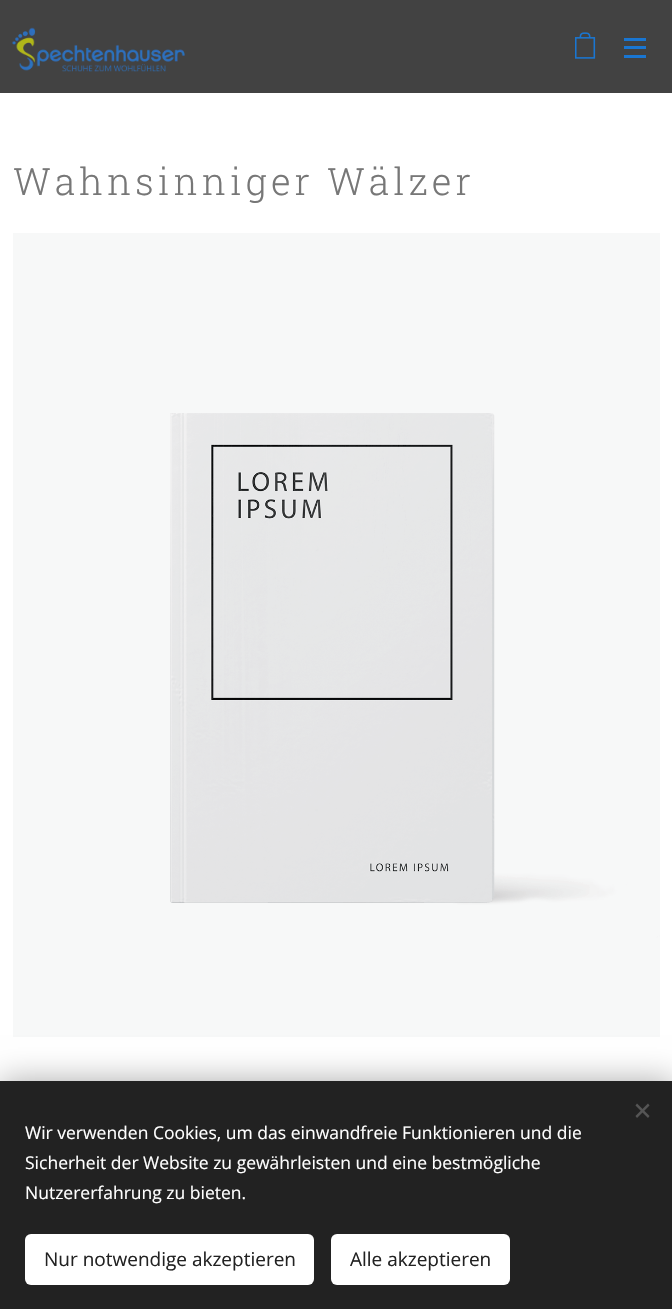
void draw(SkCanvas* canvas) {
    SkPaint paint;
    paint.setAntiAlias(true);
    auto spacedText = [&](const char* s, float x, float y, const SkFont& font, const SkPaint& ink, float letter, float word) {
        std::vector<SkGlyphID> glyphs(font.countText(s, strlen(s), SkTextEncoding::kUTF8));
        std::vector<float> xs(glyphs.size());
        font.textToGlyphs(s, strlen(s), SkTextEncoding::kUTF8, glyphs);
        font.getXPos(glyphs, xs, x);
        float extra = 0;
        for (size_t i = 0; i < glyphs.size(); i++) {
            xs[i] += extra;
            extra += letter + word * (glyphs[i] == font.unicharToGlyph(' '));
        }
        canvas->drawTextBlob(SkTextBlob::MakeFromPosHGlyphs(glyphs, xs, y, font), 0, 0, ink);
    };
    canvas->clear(0xFFFFFFFF);
    paint.setColor(0xFF424242);
    canvas->drawRect(SkRect::MakeXYWH(0, 0, 672, 93), paint);
    canvas->drawImageRect(SkImages::DeferredFromEncodedData(SkData::MakeFromFileName("img1.png")), SkRect::MakeXYWH(12, 27, 173, 45), SkSamplingOptions());
    canvas->drawImageRect(SkImages::DeferredFromEncodedData(SkData::MakeFromFileName("img2.png")), SkRect::MakeXYWH(575, 32, 21, 27), SkSamplingOptions());
    paint.setColor(0xFF1976D2);
    canvas->drawRect(SkRect::MakeXYWH(624, 46, 22, 3), paint);
    canvas->drawRect(SkRect::MakeXYWH(624, 38, 22, 3), paint);
    canvas->drawRect(SkRect::MakeXYWH(624, 55, 22, 3), paint);
    SkFont font1(fontMgr->matchFamilyStyle("Roboto Slab", SkFontStyle(300, SkFontStyle::kNormal_Width, SkFontStyle::kUpright_Slant)), 37.5f);
    font1.setSubpixel(true);
    paint.setColor(0xFF777777);
    spacedText("Wahnsinniger Wälzer", 13, 195, font1, paint, 4, 0);
    canvas->drawImageRect(SkImages::DeferredFromEncodedData(SkData::MakeFromFileName("img3.png")), SkRect::MakeXYWH(13, 233, 647, 804), SkSamplingOptions());
    paint.setColor(0x54000000);
    paint.setMaskFilter(SkMaskFilter::MakeBlur(kNormal_SkBlurStyle, 15.5f));
    canvas->drawRect(SkRect::MakeXYWH(0, 1081, 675, 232), paint);
    paint.setMaskFilter(nullptr);
    paint.setColor(0xFF222222);
    canvas->drawRect(SkRect::MakeXYWH(0, 1081, 672, 228), paint);
    paint.setColor(0xFF555555);
    canvas->drawPath(SkPathBuilder().moveTo(635.5f, 1116).lineTo(648, 1103.5f).lineTo(649.5f, 1105.5f).lineTo(637, 1118).close().detach(), paint);
    canvas->drawPath(SkPathBuilder().moveTo(637, 1103.5f).lineTo(649.5f, 1116).lineTo(648, 1118).lineTo(635.5f, 1105.5f).close().detach(), paint);
    SkFont font2(fontMgr->matchFamilyStyle("Open Sans", SkFontStyle::Normal()), 17.5f);
    font2.setSubpixel(true);
    paint.setColor(0xFFFFFFFF);
    canvas->drawString("Wir verwenden Cookies, um das einwandfreie Funktionieren und die", 25, 1139, font2, paint);
    canvas->drawString("Sicherheit der Website zu gewährleisten und eine bestmögliche", 25, 1169, font2, paint);
    canvas->drawString("Nutzererfahrung zu bieten.", 25, 1199, font2, paint);
    canvas->drawRoundRect(SkRect::MakeXYWH(25, 1234, 289, 51), 6, 6, paint);
    SkFont font3(fontMgr->matchFamilyStyle("Open Sans", SkFontStyle::Normal()), 19);
    font3.setSubpixel(true);
    paint.setColor(0xFF222222);
    canvas->drawString("Nur notwendige akzeptieren", 44, 1266, font3, paint);
    paint.setColor(0xFFFFFFFF);
    canvas->drawRoundRect(SkRect::MakeXYWH(331, 1234, 179, 51), 6, 6, paint);
    paint.setColor(0xFF222222);
    canvas->drawString("Alle akzeptieren", 350, 1266, font3, paint);
}
